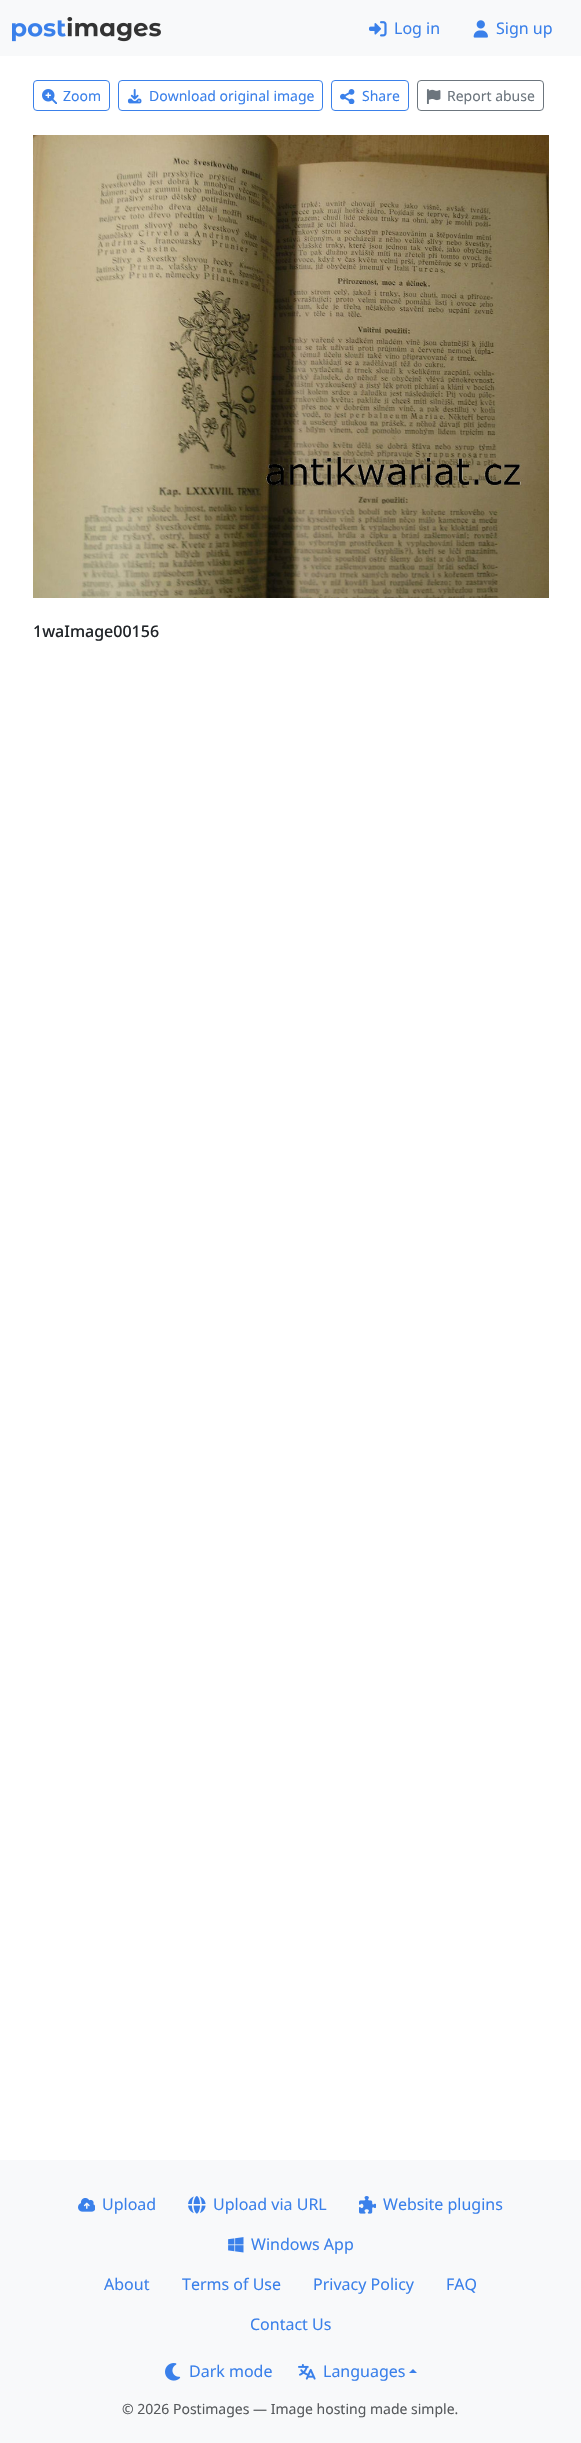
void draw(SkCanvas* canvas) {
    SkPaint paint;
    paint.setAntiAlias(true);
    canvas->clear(0xFFFFFFFF);
    paint.setColor(0xFFF8F9FA);
    canvas->drawRect(SkRect::MakeXYWH(0, 0, 581, 56), paint);
    canvas->drawImageRect(SkImages::DeferredFromEncodedData(SkData::MakeFromFileName("img1.png")), SkRect::MakeXYWH(12, 17, 149, 25), SkSamplingOptions());
    canvas->drawImageRect(SkImages::DeferredFromEncodedData(SkData::MakeFromFileName("img2.png")), SkRect::MakeXYWH(369, 21, 18, 16), SkSamplingOptions());
    SkFont font1(fontMgr->matchFamilyStyle("Noto Sans", SkFontStyle::Normal()), 16);
    font1.setSubpixel(true);
    paint.setColor(0xFF3A80EA);
    canvas->drawString("Log in", 394, 34, font1, paint);
    canvas->drawImageRect(SkImages::DeferredFromEncodedData(SkData::MakeFromFileName("img3.png")), SkRect::MakeXYWH(473, 20, 15, 18), SkSamplingOptions());
    canvas->drawString("Sign up", 496, 34, font1, paint);
    paint.setStyle(SkPaint::kStroke_Style);
    paint.setStrokeWidth(1);
    canvas->drawRoundRect(SkRect::MakeXYWH(33.5f, 80.5f, 76, 30), 3.5f, 3.5f, paint);
    canvas->drawImageRect(SkImages::DeferredFromEncodedData(SkData::MakeFromFileName("img4.png")), SkRect::MakeXYWH(42, 89, 15, 15), SkSamplingOptions());
    SkFont font2(fontMgr->matchFamilyStyle("Noto Sans", SkFontStyle::Normal()), 14);
    font2.setSubpixel(true);
    paint.setStyle(SkPaint::kFill_Style);
    canvas->drawString("Zoom", 63, 101, font2, paint);
    paint.setStyle(SkPaint::kStroke_Style);
    canvas->drawRoundRect(SkRect::MakeXYWH(118.5f, 80.5f, 204, 30), 3.5f, 3.5f, paint);
    canvas->drawImageRect(SkImages::DeferredFromEncodedData(SkData::MakeFromFileName("img5.png")), SkRect::MakeXYWH(127, 89, 15, 15), SkSamplingOptions());
    paint.setStyle(SkPaint::kFill_Style);
    canvas->drawString("Download original image", 149, 101, font2, paint);
    paint.setStyle(SkPaint::kStroke_Style);
    canvas->drawRoundRect(SkRect::MakeXYWH(331.5f, 80.5f, 77, 30), 3.5f, 3.5f, paint);
    canvas->drawImageRect(SkImages::DeferredFromEncodedData(SkData::MakeFromFileName("img6.png")), SkRect::MakeXYWH(340, 89, 15, 15), SkSamplingOptions());
    paint.setStyle(SkPaint::kFill_Style);
    canvas->drawString("Share", 362, 101, font2, paint);
    paint.setStyle(SkPaint::kStroke_Style);
    paint.setColor(0xFF6C757D);
    canvas->drawRoundRect(SkRect::MakeXYWH(417.5f, 80.5f, 126, 30), 3.5f, 3.5f, paint);
    canvas->drawImageRect(SkImages::DeferredFromEncodedData(SkData::MakeFromFileName("img7.png")), SkRect::MakeXYWH(426, 89, 15, 15), SkSamplingOptions());
    paint.setStyle(SkPaint::kFill_Style);
    canvas->drawString("Report abuse", 447, 101, font2, paint);
    canvas->drawImageRect(SkImages::DeferredFromEncodedData(SkData::MakeFromFileName("img8.png")), SkRect::MakeXYWH(33, 135, 516, 463), SkSamplingOptions());
    SkFont font3(fontMgr->matchFamilyStyle("Noto Sans", SkFontStyle(500, SkFontStyle::kNormal_Width, SkFontStyle::kUpright_Slant)), 16);
    font3.setSubpixel(true);
    paint.setColor(0xFF212529);
    canvas->drawString("1waImage00156", 33, 637, font3, paint);
    paint.setColor(0xFFF8F9FA);
    canvas->drawRect(SkRect::MakeXYWH(0, 2160, 581, 283), paint);
    canvas->drawImageRect(SkImages::DeferredFromEncodedData(SkData::MakeFromFileName("img9.png")), SkRect::MakeXYWH(78, 2198, 17, 14), SkSamplingOptions());
    paint.setColor(0xFF3A80EA);
    canvas->drawString("Upload", 102, 2210, font1, paint);
    canvas->drawImageRect(SkImages::DeferredFromEncodedData(SkData::MakeFromFileName("img10.png")), SkRect::MakeXYWH(188, 2196, 18, 18), SkSamplingOptions());
    canvas->drawString("Upload via URL", 213, 2210, font1, paint);
    canvas->drawImageRect(SkImages::DeferredFromEncodedData(SkData::MakeFromFileName("img11.png")), SkRect::MakeXYWH(359, 2196, 17, 18), SkSamplingOptions());
    canvas->drawString("Website plugins", 383, 2210, font1, paint);
    canvas->drawImageRect(SkImages::DeferredFromEncodedData(SkData::MakeFromFileName("img12.png")), SkRect::MakeXYWH(228, 2237, 16, 16), SkSamplingOptions());
    canvas->drawString("Windows App", 251, 2250, font1, paint);
    canvas->drawString("About", 104, 2290, font1, paint);
    canvas->drawString("Terms of Use", 182, 2290, font1, paint);
    canvas->drawString("Privacy Policy", 313, 2290, font1, paint);
    canvas->drawString("FAQ", 446, 2290, font1, paint);
    canvas->drawString("Contact Us", 250, 2330, font1, paint);
    canvas->drawImageRect(SkImages::DeferredFromEncodedData(SkData::MakeFromFileName("img13.png")), SkRect::MakeXYWH(165, 2363, 16, 18), SkSamplingOptions());
    canvas->drawString("Dark mode", 189, 2377, font1, paint);
    canvas->drawImageRect(SkImages::DeferredFromEncodedData(SkData::MakeFromFileName("img14.png")), SkRect::MakeXYWH(298, 2364, 18, 16), SkSamplingOptions());
    canvas->drawString("Languages", 323, 2377, font1, paint);
    canvas->drawPath(SkPathBuilder().moveTo(417, 2373).lineTo(409, 2373).lineTo(413, 2369).close().detach(), paint);
    paint.setColor(0xFF575A5D);
    canvas->drawString("© 2026 Postimages — Image hosting made simple.", 122, 2414, font2, paint);
}
